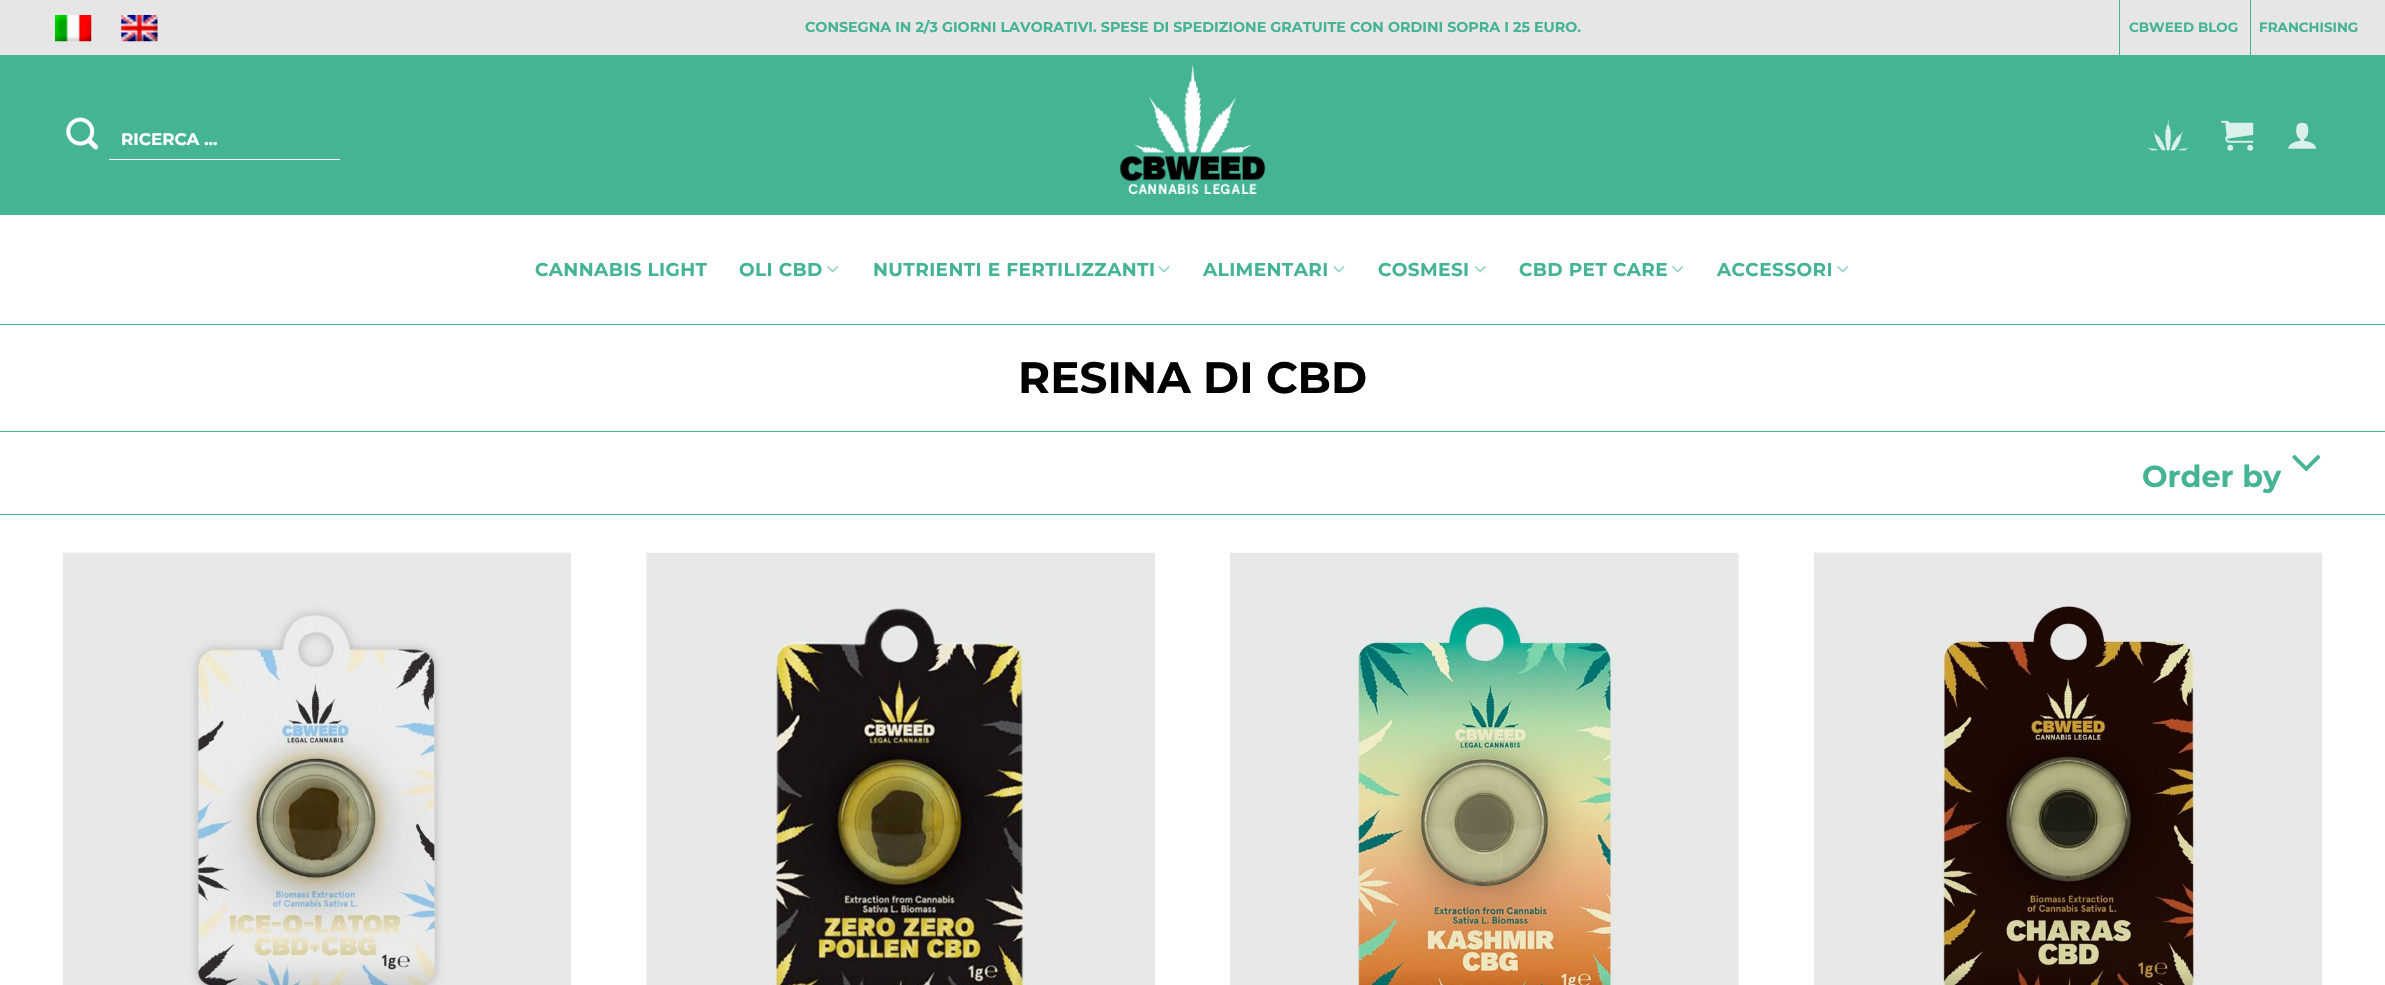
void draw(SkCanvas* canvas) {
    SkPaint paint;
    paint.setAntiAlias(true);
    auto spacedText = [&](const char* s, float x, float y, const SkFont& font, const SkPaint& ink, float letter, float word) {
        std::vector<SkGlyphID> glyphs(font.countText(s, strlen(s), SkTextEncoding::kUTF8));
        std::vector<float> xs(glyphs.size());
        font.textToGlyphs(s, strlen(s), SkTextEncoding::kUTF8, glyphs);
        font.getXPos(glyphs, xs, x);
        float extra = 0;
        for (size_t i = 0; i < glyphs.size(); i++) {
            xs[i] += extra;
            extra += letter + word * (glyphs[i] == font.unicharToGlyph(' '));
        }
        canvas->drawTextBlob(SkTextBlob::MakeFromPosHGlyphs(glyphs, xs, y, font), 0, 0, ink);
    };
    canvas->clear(0xFFFFFFFF);
    paint.setColor(0xFFE6E6E6);
    canvas->drawRect(SkRect::MakeXYWH(0, 0, 2385, 55), paint);
    canvas->drawImageRect(SkImages::DeferredFromEncodedData(SkData::MakeFromFileName("img1.png")), SkRect::MakeXYWH(55, 15, 37, 27), SkSamplingOptions());
    canvas->drawImageRect(SkImages::DeferredFromEncodedData(SkData::MakeFromFileName("img2.png")), SkRect::MakeXYWH(121, 15, 37, 27), SkSamplingOptions());
    SkFont font1(fontMgr->matchFamilyStyle("Montserrat", SkFontStyle::Bold()), 14.28f);
    font1.setSubpixel(true);
    paint.setColor(0xFF45B495);
    canvas->drawString("CONSEGNA IN 2/3 GIORNI LAVORATIVI. SPESE DI SPEDIZIONE GRATUITE CON ORDINI SOPRA I 25 EURO.", 805, 32, font1, paint);
    canvas->drawRect(SkRect::MakeXYWH(2119, 0, 1, 55), paint);
    SkFont font2(fontMgr->matchFamilyStyle("Montserrat", SkFontStyle::Bold()), 13.5f);
    font2.setSubpixel(true);
    canvas->drawString("CBWEED BLOG", 2129, 32, font2, paint);
    canvas->drawRect(SkRect::MakeXYWH(2250, 0, 1, 55), paint);
    canvas->drawString("FRANCHISING", 2259, 32, font2, paint);
    canvas->drawRect(SkRect::MakeXYWH(0, 55, 2385, 160), paint);
    canvas->drawImageRect(SkImages::DeferredFromEncodedData(SkData::MakeFromFileName("img3.png")), SkRect::MakeXYWH(66, 117, 33, 33), SkSamplingOptions());
    paint.setColor(0xFFFFFFFF);
    canvas->drawRect(SkRect::MakeXYWH(109, 159, 231, 1), paint);
    SkFont font3(fontMgr->matchFamilyStyle("Montserrat", SkFontStyle::Bold()), 16.75f);
    font3.setSubpixel(true);
    canvas->drawString("RICERCA ...", 121, 145, font3, paint);
    canvas->drawImageRect(SkImages::DeferredFromEncodedData(SkData::MakeFromFileName("img4.png")), SkRect::MakeXYWH(1120, 65, 146, 130), SkSamplingOptions());
    canvas->drawImageRect(SkImages::DeferredFromEncodedData(SkData::MakeFromFileName("img5.png")), SkRect::MakeXYWH(2147, 118, 42, 33), SkSamplingOptions());
    canvas->drawImageRect(SkImages::DeferredFromEncodedData(SkData::MakeFromFileName("img6.png")), SkRect::MakeXYWH(2221, 120, 33, 31), SkSamplingOptions());
    canvas->drawImageRect(SkImages::DeferredFromEncodedData(SkData::MakeFromFileName("img7.png")), SkRect::MakeXYWH(2288, 122, 29, 27), SkSamplingOptions());
    paint.setColor(0xFF45B495);
    canvas->drawRect(SkRect::MakeXYWH(0, 324, 2385, 1), paint);
    SkFont font4(fontMgr->matchFamilyStyle("Montserrat", SkFontStyle::Bold()), 18.5f);
    font4.setSubpixel(true);
    spacedText("CANNABIS LIGHT", 535, 276, font4, paint, 0.4f, 0);
    spacedText("OLI CBD", 739, 276, font4, paint, 0.4f, 0);
    canvas->drawImageRect(SkImages::DeferredFromEncodedData(SkData::MakeFromFileName("img8.png")), SkRect::MakeXYWH(827, 266, 12, 7), SkSamplingOptions());
    spacedText("NUTRIENTI E FERTILIZZANTI", 873, 276, font4, paint, 0.4f, 0);
    canvas->drawImageRect(SkImages::DeferredFromEncodedData(SkData::MakeFromFileName("img9.png")), SkRect::MakeXYWH(1158, 266, 12, 7), SkSamplingOptions());
    spacedText("ALIMENTARI", 1203, 276, font4, paint, 0.4f, 0);
    canvas->drawImageRect(SkImages::DeferredFromEncodedData(SkData::MakeFromFileName("img9.png")), SkRect::MakeXYWH(1333, 266, 12, 7), SkSamplingOptions());
    spacedText("COSMESI", 1378, 276, font4, paint, 0.4f, 0);
    canvas->drawImageRect(SkImages::DeferredFromEncodedData(SkData::MakeFromFileName("img10.png")), SkRect::MakeXYWH(1474, 266, 12, 7), SkSamplingOptions());
    spacedText("CBD PET CARE", 1519, 276, font4, paint, 0.4f, 0);
    canvas->drawImageRect(SkImages::DeferredFromEncodedData(SkData::MakeFromFileName("img8.png")), SkRect::MakeXYWH(1672, 266, 12, 7), SkSamplingOptions());
    spacedText("ACCESSORI", 1717, 276, font4, paint, 0.4f, 0);
    canvas->drawImageRect(SkImages::DeferredFromEncodedData(SkData::MakeFromFileName("img8.png")), SkRect::MakeXYWH(1837, 266, 12, 7), SkSamplingOptions());
    canvas->drawRect(SkRect::MakeXYWH(0, 431, 2385, 1), paint);
    SkFont font5(fontMgr->matchFamilyStyle("Montserrat", SkFontStyle::Bold()), 43.75f);
    font5.setSubpixel(true);
    paint.setColor(0xFF000000);
    canvas->drawString("RESINA DI CBD", 1018, 393, font5, paint);
    paint.setColor(0xFF45B495);
    canvas->drawRect(SkRect::MakeXYWH(0, 514, 2385, 1), paint);
    SkFont font6(fontMgr->matchFamilyStyle("Montserrat", SkFontStyle::Bold()), 30.25f);
    font6.setSubpixel(true);
    canvas->drawString("Order by", 2142, 487, font6, paint);
    canvas->drawImageRect(SkImages::DeferredFromEncodedData(SkData::MakeFromFileName("img11.png")), SkRect::MakeXYWH(2292, 454, 29, 18), SkSamplingOptions());
    canvas->drawImageRect(SkImages::DeferredFromEncodedData(SkData::MakeFromFileName("img12.png")), SkRect::MakeXYWH(62, 552, 509, 433), SkSamplingOptions());
    canvas->drawImageRect(SkImages::DeferredFromEncodedData(SkData::MakeFromFileName("img13.png")), SkRect::MakeXYWH(646, 552, 509, 433), SkSamplingOptions());
    canvas->drawImageRect(SkImages::DeferredFromEncodedData(SkData::MakeFromFileName("img14.png")), SkRect::MakeXYWH(1230, 552, 509, 433), SkSamplingOptions());
    canvas->drawImageRect(SkImages::DeferredFromEncodedData(SkData::MakeFromFileName("img15.png")), SkRect::MakeXYWH(1814, 552, 509, 433), SkSamplingOptions());
}
